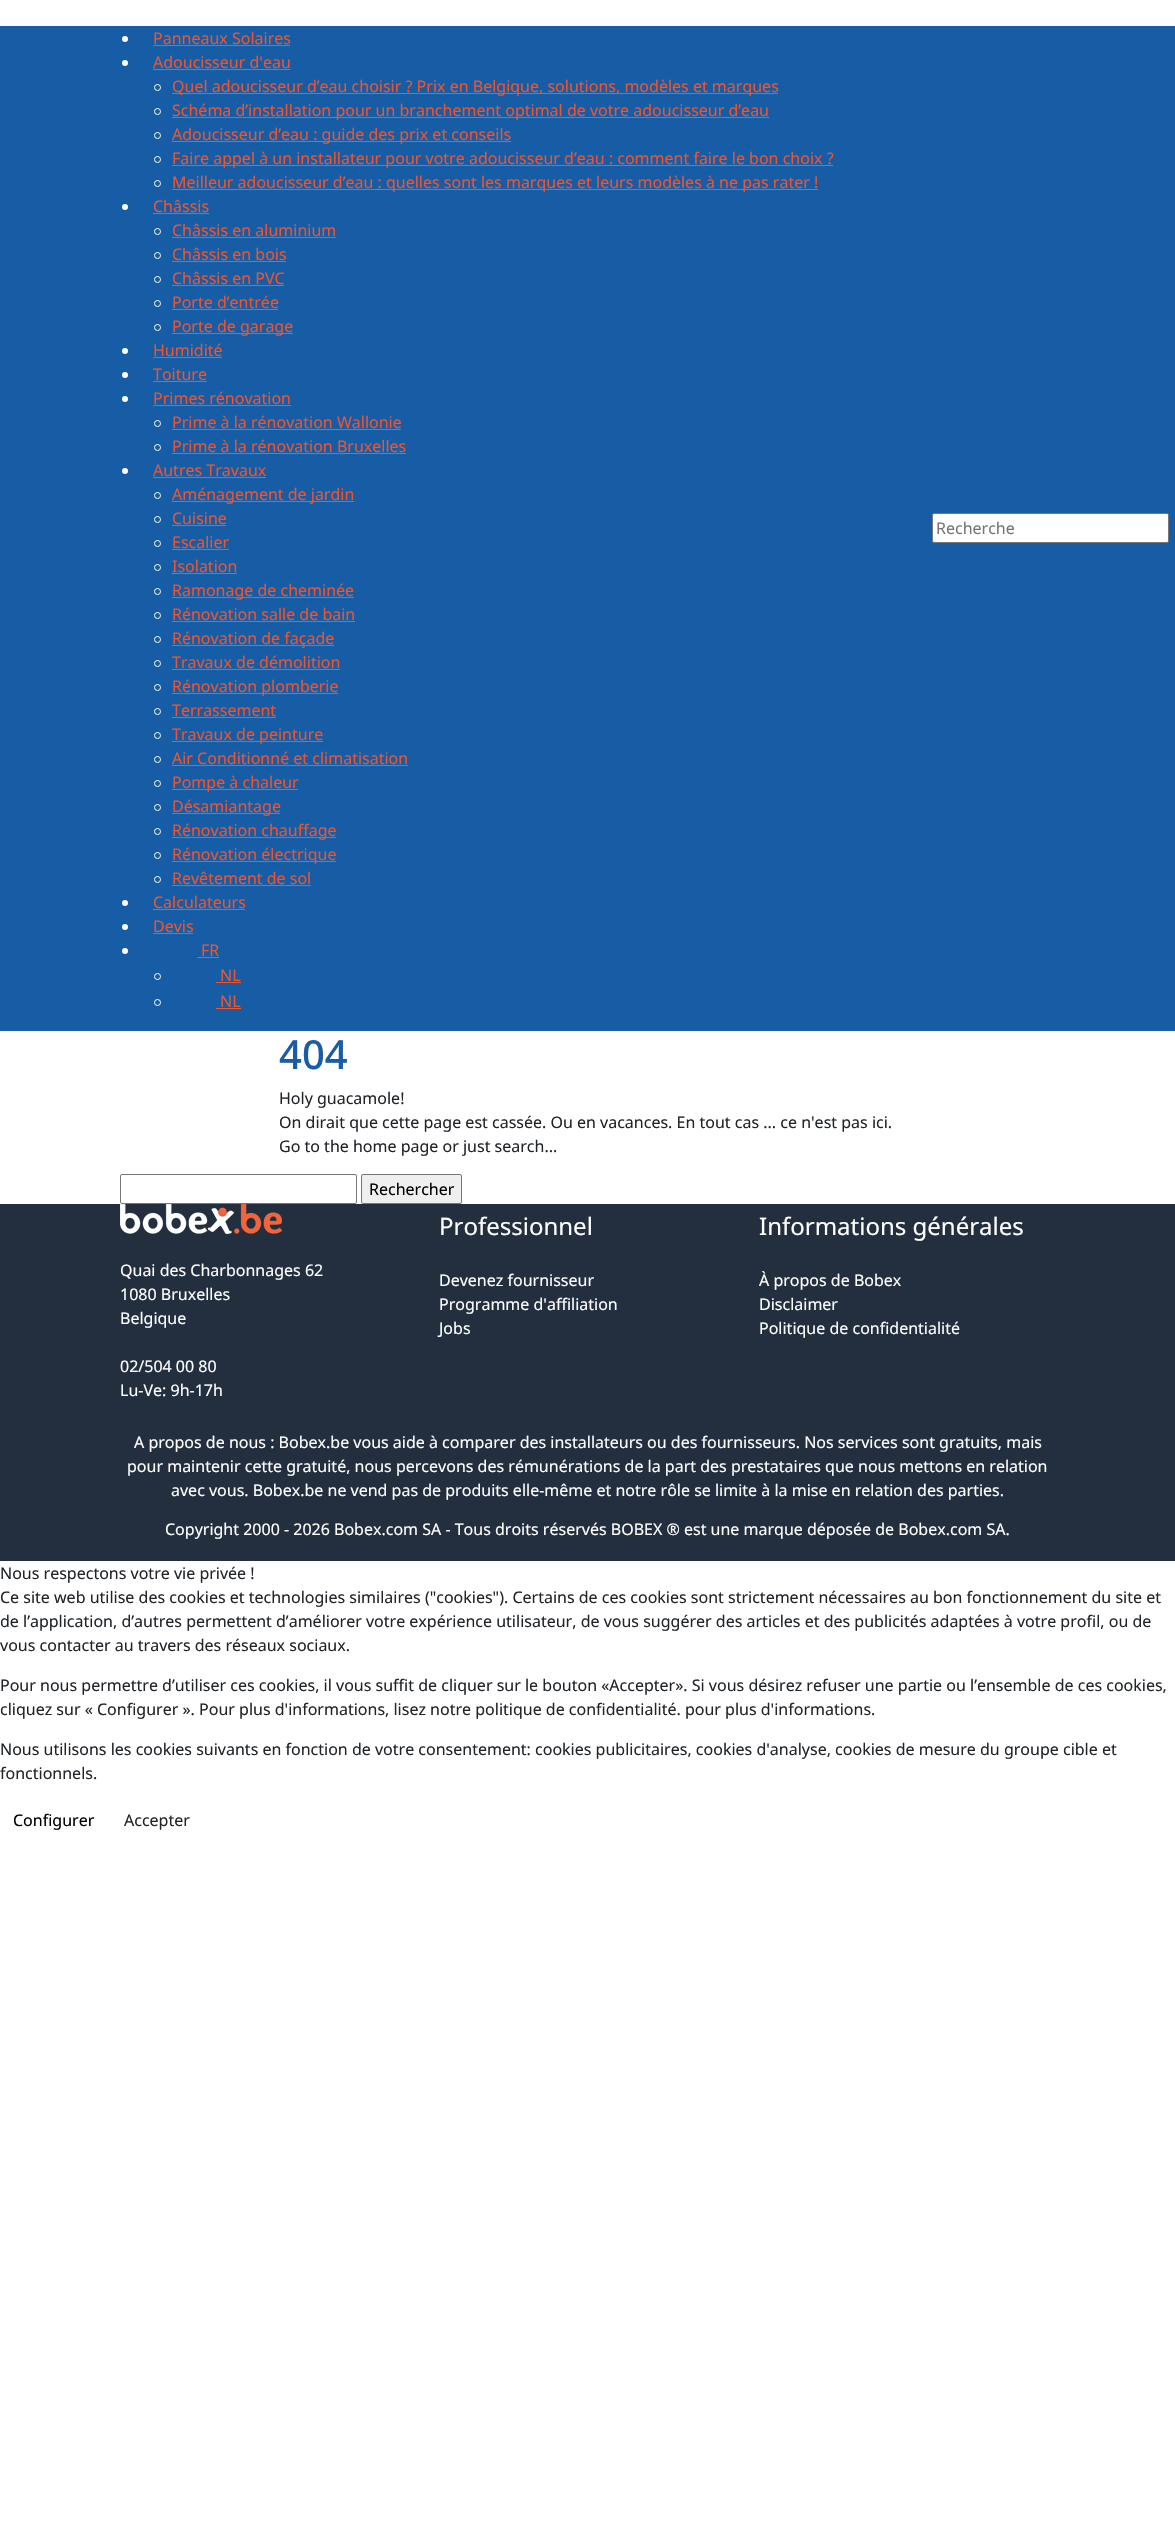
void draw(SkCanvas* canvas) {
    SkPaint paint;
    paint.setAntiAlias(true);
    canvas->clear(0xFFFFFFFF);
    paint.setColor(0xFF175DA6);
    canvas->drawRect(SkRect::MakeXYWH(0, 26, 1175, 1005), paint);
    paint.setColor(0xFFFFFFFF);
    canvas->drawCircle(125, 39, 3, paint);
    SkFont font1(fontMgr->matchFamilyStyle("Noto Sans", SkFontStyle::Normal()), 16);
    font1.setSubpixel(true);
    paint.setColor(0xFFF0542D);
    canvas->drawString("Panneaux Solaires", 153, 44, font1, paint);
    canvas->drawRect(SkRect::MakeXYWH(153, 45, 137, 1), paint);
    paint.setColor(0xFFFFFFFF);
    canvas->drawCircle(125, 63, 3, paint);
    paint.setColor(0xFFF0542D);
    canvas->drawString("Adoucisseur d'eau", 153, 68, font1, paint);
    canvas->drawRect(SkRect::MakeXYWH(153, 69, 137, 1), paint);
    paint.setStyle(SkPaint::kStroke_Style);
    paint.setStrokeWidth(1);
    paint.setColor(0xFFFFFFFF);
    canvas->drawCircle(157.5f, 87.5f, 3, paint);
    paint.setStyle(SkPaint::kFill_Style);
    paint.setColor(0xFFF0542D);
    canvas->drawRect(SkRect::MakeXYWH(172, 93, 606, 1), paint);
    canvas->drawString("Quel adoucisseur d’eau choisir ? Prix en Belgique, solutions, modèles et marques", 172, 92, font1, paint);
    paint.setStyle(SkPaint::kStroke_Style);
    paint.setColor(0xFFFFFFFF);
    canvas->drawCircle(157.5f, 111.5f, 3, paint);
    paint.setStyle(SkPaint::kFill_Style);
    paint.setColor(0xFFF0542D);
    canvas->drawRect(SkRect::MakeXYWH(172, 117, 597, 1), paint);
    canvas->drawString("Schéma d’installation pour un branchement optimal de votre adoucisseur d’eau", 172, 116, font1, paint);
    paint.setStyle(SkPaint::kStroke_Style);
    paint.setColor(0xFFFFFFFF);
    canvas->drawCircle(157.5f, 135.5f, 3, paint);
    paint.setStyle(SkPaint::kFill_Style);
    paint.setColor(0xFFF0542D);
    canvas->drawRect(SkRect::MakeXYWH(172, 141, 339, 1), paint);
    canvas->drawString("Adoucisseur d’eau : guide des prix et conseils", 172, 140, font1, paint);
    paint.setStyle(SkPaint::kStroke_Style);
    paint.setColor(0xFFFFFFFF);
    canvas->drawCircle(157.5f, 159.5f, 3, paint);
    paint.setStyle(SkPaint::kFill_Style);
    paint.setColor(0xFFF0542D);
    canvas->drawRect(SkRect::MakeXYWH(172, 165, 661, 1), paint);
    canvas->drawString("Faire appel à un installateur pour votre adoucisseur d’eau : comment faire le bon choix ?", 172, 164, font1, paint);
    paint.setStyle(SkPaint::kStroke_Style);
    paint.setColor(0xFFFFFFFF);
    canvas->drawCircle(157.5f, 183.5f, 3, paint);
    paint.setStyle(SkPaint::kFill_Style);
    paint.setColor(0xFFF0542D);
    canvas->drawRect(SkRect::MakeXYWH(172, 189, 646, 1), paint);
    canvas->drawString("Meilleur adoucisseur d’eau : quelles sont les marques et leurs modèles à ne pas rater !", 172, 188, font1, paint);
    paint.setColor(0xFFFFFFFF);
    canvas->drawCircle(125, 207, 3, paint);
    paint.setColor(0xFFF0542D);
    canvas->drawString("Châssis", 153, 212, font1, paint);
    canvas->drawRect(SkRect::MakeXYWH(153, 213, 56, 1), paint);
    paint.setStyle(SkPaint::kStroke_Style);
    paint.setColor(0xFFFFFFFF);
    canvas->drawCircle(157.5f, 231.5f, 3, paint);
    paint.setStyle(SkPaint::kFill_Style);
    paint.setColor(0xFFF0542D);
    canvas->drawString("Châssis en aluminium", 172, 236, font1, paint);
    canvas->drawRect(SkRect::MakeXYWH(172, 237, 164, 1), paint);
    paint.setStyle(SkPaint::kStroke_Style);
    paint.setColor(0xFFFFFFFF);
    canvas->drawCircle(157.5f, 255.5f, 3, paint);
    paint.setStyle(SkPaint::kFill_Style);
    paint.setColor(0xFFF0542D);
    canvas->drawString("Châssis en bois", 172, 260, font1, paint);
    canvas->drawRect(SkRect::MakeXYWH(172, 261, 114, 1), paint);
    paint.setStyle(SkPaint::kStroke_Style);
    paint.setColor(0xFFFFFFFF);
    canvas->drawCircle(157.5f, 279.5f, 3, paint);
    paint.setStyle(SkPaint::kFill_Style);
    paint.setColor(0xFFF0542D);
    canvas->drawString("Châssis en PVC", 172, 284, font1, paint);
    canvas->drawRect(SkRect::MakeXYWH(172, 285, 112, 1), paint);
    paint.setStyle(SkPaint::kStroke_Style);
    paint.setColor(0xFFFFFFFF);
    canvas->drawCircle(157.5f, 303.5f, 3, paint);
    paint.setStyle(SkPaint::kFill_Style);
    paint.setColor(0xFFF0542D);
    canvas->drawString("Porte d’entrée", 172, 308, font1, paint);
    canvas->drawRect(SkRect::MakeXYWH(172, 309, 106, 1), paint);
    paint.setStyle(SkPaint::kStroke_Style);
    paint.setColor(0xFFFFFFFF);
    canvas->drawCircle(157.5f, 327.5f, 3, paint);
    paint.setStyle(SkPaint::kFill_Style);
    paint.setColor(0xFFF0542D);
    canvas->drawRect(SkRect::MakeXYWH(172, 333, 121, 1), paint);
    canvas->drawString("Porte de garage", 172, 332, font1, paint);
    paint.setColor(0xFFFFFFFF);
    canvas->drawCircle(125, 351, 3, paint);
    paint.setColor(0xFFF0542D);
    canvas->drawString("Humidité", 153, 356, font1, paint);
    canvas->drawRect(SkRect::MakeXYWH(153, 357, 69, 1), paint);
    paint.setColor(0xFFFFFFFF);
    canvas->drawCircle(125, 375, 3, paint);
    paint.setColor(0xFFF0542D);
    canvas->drawString("Toiture", 153, 380, font1, paint);
    canvas->drawRect(SkRect::MakeXYWH(153, 381, 54, 1), paint);
    paint.setColor(0xFFFFFFFF);
    canvas->drawCircle(125, 399, 3, paint);
    paint.setColor(0xFFF0542D);
    canvas->drawString("Primes rénovation", 153, 404, font1, paint);
    canvas->drawRect(SkRect::MakeXYWH(153, 405, 138, 1), paint);
    paint.setStyle(SkPaint::kStroke_Style);
    paint.setColor(0xFFFFFFFF);
    canvas->drawCircle(157.5f, 423.5f, 3, paint);
    paint.setStyle(SkPaint::kFill_Style);
    paint.setColor(0xFFF0542D);
    canvas->drawString("Prime à la rénovation Wallonie", 172, 428, font1, paint);
    canvas->drawRect(SkRect::MakeXYWH(172, 429, 229, 1), paint);
    paint.setStyle(SkPaint::kStroke_Style);
    paint.setColor(0xFFFFFFFF);
    canvas->drawCircle(157.5f, 447.5f, 3, paint);
    paint.setStyle(SkPaint::kFill_Style);
    paint.setColor(0xFFF0542D);
    canvas->drawString("Prime à la rénovation Bruxelles", 172, 452, font1, paint);
    canvas->drawRect(SkRect::MakeXYWH(172, 453, 234, 1), paint);
    paint.setColor(0xFFFFFFFF);
    canvas->drawCircle(125, 471, 3, paint);
    paint.setColor(0xFFF0542D);
    canvas->drawString("Autres Travaux", 153, 476, font1, paint);
    canvas->drawRect(SkRect::MakeXYWH(153, 477, 113, 1), paint);
    paint.setStyle(SkPaint::kStroke_Style);
    paint.setColor(0xFFFFFFFF);
    canvas->drawCircle(157.5f, 495.5f, 3, paint);
    paint.setStyle(SkPaint::kFill_Style);
    paint.setColor(0xFFF0542D);
    canvas->drawRect(SkRect::MakeXYWH(172, 501, 182, 1), paint);
    canvas->drawString("Aménagement de jardin", 172, 500, font1, paint);
    paint.setStyle(SkPaint::kStroke_Style);
    paint.setColor(0xFFFFFFFF);
    canvas->drawCircle(157.5f, 519.5f, 3, paint);
    paint.setStyle(SkPaint::kFill_Style);
    paint.setColor(0xFFF0542D);
    canvas->drawString("Cuisine", 172, 524, font1, paint);
    canvas->drawRect(SkRect::MakeXYWH(172, 525, 54, 1), paint);
    paint.setStyle(SkPaint::kStroke_Style);
    paint.setColor(0xFFFFFFFF);
    canvas->drawCircle(157.5f, 543.5f, 3, paint);
    paint.setStyle(SkPaint::kFill_Style);
    paint.setColor(0xFFF0542D);
    canvas->drawString("Escalier", 172, 548, font1, paint);
    canvas->drawRect(SkRect::MakeXYWH(172, 549, 57, 1), paint);
    paint.setStyle(SkPaint::kStroke_Style);
    paint.setColor(0xFFFFFFFF);
    canvas->drawCircle(157.5f, 567.5f, 3, paint);
    paint.setStyle(SkPaint::kFill_Style);
    paint.setColor(0xFFF0542D);
    canvas->drawString("Isolation", 172, 572, font1, paint);
    canvas->drawRect(SkRect::MakeXYWH(172, 573, 65, 1), paint);
    paint.setStyle(SkPaint::kStroke_Style);
    paint.setColor(0xFFFFFFFF);
    canvas->drawCircle(157.5f, 591.5f, 3, paint);
    paint.setStyle(SkPaint::kFill_Style);
    paint.setColor(0xFFF0542D);
    canvas->drawRect(SkRect::MakeXYWH(172, 597, 182, 1), paint);
    canvas->drawString("Ramonage de cheminée", 172, 596, font1, paint);
    paint.setStyle(SkPaint::kStroke_Style);
    paint.setColor(0xFFFFFFFF);
    canvas->drawCircle(157.5f, 615.5f, 3, paint);
    paint.setStyle(SkPaint::kFill_Style);
    paint.setColor(0xFFF0542D);
    canvas->drawString("Rénovation salle de bain", 172, 620, font1, paint);
    canvas->drawRect(SkRect::MakeXYWH(172, 621, 183, 1), paint);
    paint.setStyle(SkPaint::kStroke_Style);
    paint.setColor(0xFFFFFFFF);
    canvas->drawCircle(157.5f, 639.5f, 3, paint);
    paint.setStyle(SkPaint::kFill_Style);
    paint.setColor(0xFFF0542D);
    canvas->drawRect(SkRect::MakeXYWH(172, 645, 162, 1), paint);
    canvas->drawString("Rénovation de façade", 172, 644, font1, paint);
    paint.setStyle(SkPaint::kStroke_Style);
    paint.setColor(0xFFFFFFFF);
    canvas->drawCircle(157.5f, 663.5f, 3, paint);
    paint.setStyle(SkPaint::kFill_Style);
    paint.setColor(0xFFF0542D);
    canvas->drawString("Travaux de démolition", 172, 668, font1, paint);
    canvas->drawRect(SkRect::MakeXYWH(172, 669, 168, 1), paint);
    paint.setStyle(SkPaint::kStroke_Style);
    paint.setColor(0xFFFFFFFF);
    canvas->drawCircle(157.5f, 687.5f, 3, paint);
    paint.setStyle(SkPaint::kFill_Style);
    paint.setColor(0xFFF0542D);
    canvas->drawRect(SkRect::MakeXYWH(172, 693, 166, 1), paint);
    canvas->drawString("Rénovation plomberie", 172, 692, font1, paint);
    paint.setStyle(SkPaint::kStroke_Style);
    paint.setColor(0xFFFFFFFF);
    canvas->drawCircle(157.5f, 711.5f, 3, paint);
    paint.setStyle(SkPaint::kFill_Style);
    paint.setColor(0xFFF0542D);
    canvas->drawString("Terrassement", 172, 716, font1, paint);
    canvas->drawRect(SkRect::MakeXYWH(172, 717, 104, 1), paint);
    paint.setStyle(SkPaint::kStroke_Style);
    paint.setColor(0xFFFFFFFF);
    canvas->drawCircle(157.5f, 735.5f, 3, paint);
    paint.setStyle(SkPaint::kFill_Style);
    paint.setColor(0xFFF0542D);
    canvas->drawRect(SkRect::MakeXYWH(172, 741, 151, 1), paint);
    canvas->drawString("Travaux de peinture", 172, 740, font1, paint);
    paint.setStyle(SkPaint::kStroke_Style);
    paint.setColor(0xFFFFFFFF);
    canvas->drawCircle(157.5f, 759.5f, 3, paint);
    paint.setStyle(SkPaint::kFill_Style);
    paint.setColor(0xFFF0542D);
    canvas->drawString("Air Conditionné et climatisation", 172, 764, font1, paint);
    canvas->drawRect(SkRect::MakeXYWH(172, 765, 236, 1), paint);
    paint.setStyle(SkPaint::kStroke_Style);
    paint.setColor(0xFFFFFFFF);
    canvas->drawCircle(157.5f, 783.5f, 3, paint);
    paint.setStyle(SkPaint::kFill_Style);
    paint.setColor(0xFFF0542D);
    canvas->drawRect(SkRect::MakeXYWH(172, 789, 126, 1), paint);
    canvas->drawString("Pompe à chaleur", 172, 788, font1, paint);
    paint.setStyle(SkPaint::kStroke_Style);
    paint.setColor(0xFFFFFFFF);
    canvas->drawCircle(157.5f, 807.5f, 3, paint);
    paint.setStyle(SkPaint::kFill_Style);
    paint.setColor(0xFFF0542D);
    canvas->drawRect(SkRect::MakeXYWH(172, 813, 108, 1), paint);
    canvas->drawString("Désamiantage", 172, 812, font1, paint);
    paint.setStyle(SkPaint::kStroke_Style);
    paint.setColor(0xFFFFFFFF);
    canvas->drawCircle(157.5f, 831.5f, 3, paint);
    paint.setStyle(SkPaint::kFill_Style);
    paint.setColor(0xFFF0542D);
    canvas->drawRect(SkRect::MakeXYWH(172, 837, 164, 1), paint);
    canvas->drawString("Rénovation chauffage", 172, 836, font1, paint);
    paint.setStyle(SkPaint::kStroke_Style);
    paint.setColor(0xFFFFFFFF);
    canvas->drawCircle(157.5f, 855.5f, 3, paint);
    paint.setStyle(SkPaint::kFill_Style);
    paint.setColor(0xFFF0542D);
    canvas->drawRect(SkRect::MakeXYWH(172, 861, 164, 1), paint);
    canvas->drawString("Rénovation électrique", 172, 860, font1, paint);
    paint.setStyle(SkPaint::kStroke_Style);
    paint.setColor(0xFFFFFFFF);
    canvas->drawCircle(157.5f, 879.5f, 3, paint);
    paint.setStyle(SkPaint::kFill_Style);
    paint.setColor(0xFFF0542D);
    canvas->drawString("Revêtement de sol", 172, 884, font1, paint);
    canvas->drawRect(SkRect::MakeXYWH(172, 885, 139, 1), paint);
    paint.setColor(0xFFFFFFFF);
    canvas->drawCircle(125, 903, 3, paint);
    paint.setColor(0xFFF0542D);
    canvas->drawString("Calculateurs", 153, 908, font1, paint);
    canvas->drawRect(SkRect::MakeXYWH(153, 909, 92, 1), paint);
    paint.setColor(0xFFFFFFFF);
    canvas->drawCircle(125, 927, 3, paint);
    paint.setColor(0xFFF0542D);
    canvas->drawString("Devis", 153, 932, font1, paint);
    canvas->drawRect(SkRect::MakeXYWH(153, 933, 40, 1), paint);
    paint.setColor(0xFFFFFFFF);
    canvas->drawCircle(125, 951, 3, paint);
    paint.setColor(0xFFF0542D);
    canvas->drawString("FR", 201, 956, font1, paint);
    canvas->drawRect(SkRect::MakeXYWH(197, 957, 22, 1), paint);
    paint.setStyle(SkPaint::kStroke_Style);
    paint.setColor(0xFFFFFFFF);
    canvas->drawCircle(157.5f, 976.5f, 3, paint);
    paint.setStyle(SkPaint::kFill_Style);
    paint.setColor(0xFFF0542D);
    canvas->drawString("NL", 220, 981, font1, paint);
    canvas->drawRect(SkRect::MakeXYWH(216, 982, 25, 1), paint);
    paint.setStyle(SkPaint::kStroke_Style);
    paint.setColor(0xFFFFFFFF);
    canvas->drawCircle(157.5f, 1002.5f, 3, paint);
    paint.setStyle(SkPaint::kFill_Style);
    paint.setColor(0xFFF0542D);
    canvas->drawString("NL", 220, 1007, font1, paint);
    canvas->drawRect(SkRect::MakeXYWH(216, 1008, 25, 1), paint);
    paint.setColor(0xFFFFFFFF);
    canvas->drawRoundRect(SkRect::MakeXYWH(932.5f, 513.5f, 236, 29), 1.5f, 1.5f, paint);
    paint.setStyle(SkPaint::kStroke_Style);
    paint.setColor(0xFF767676);
    canvas->drawRoundRect(SkRect::MakeXYWH(932.5f, 513.5f, 236, 29), 1.5f, 1.5f, paint);
    paint.setStyle(SkPaint::kFill_Style);
    paint.setColor(0xFF757575);
    canvas->drawString("Recherche", 936, 534, font1, paint);
    SkFont font2(fontMgr->matchFamilyStyle("Noto Sans", SkFontStyle(500, SkFontStyle::kNormal_Width, SkFontStyle::kUpright_Slant)), 40);
    font2.setSubpixel(true);
    paint.setColor(0xFF185DA6);
    canvas->drawString("404", 279, 1069, font2, paint);
    paint.setColor(0xFF212529);
    canvas->drawString("Holy guacamole!", 279, 1104, font1, paint);
    canvas->drawString("On dirait que cette page est cassée. Ou en vacances. En tout cas ... ce n'est pas ici.", 279, 1128, font1, paint);
    canvas->drawString("Go to the home page or just search...", 279, 1152, font1, paint);
    paint.setStyle(SkPaint::kStroke_Style);
    paint.setColor(0xFF767676);
    canvas->drawRoundRect(SkRect::MakeXYWH(120.5f, 1174.5f, 236, 29), 1.5f, 1.5f, paint);
    paint.setStyle(SkPaint::kFill_Style);
    paint.setColor(0xFFEFEFEF);
    canvas->drawRoundRect(SkRect::MakeXYWH(361.5f, 1174.5f, 100, 29), 1.5f, 1.5f, paint);
    paint.setStyle(SkPaint::kStroke_Style);
    paint.setColor(0xFF767676);
    canvas->drawRoundRect(SkRect::MakeXYWH(361.5f, 1174.5f, 100, 29), 1.5f, 1.5f, paint);
    paint.setStyle(SkPaint::kFill_Style);
    paint.setColor(0xFF000000);
    canvas->drawString("Rechercher", 369, 1195, font1, paint);
    paint.setColor(0xFF232F3E);
    canvas->drawRect(SkRect::MakeXYWH(0, 1204, 1175, 357), paint);
    canvas->drawImageRect(SkImages::DeferredFromEncodedData(SkData::MakeFromFileName("img1.png")), SkRect::MakeXYWH(120, 1204, 162, 30), SkSamplingOptions());
    paint.setColor(0xFFFFFFFF);
    canvas->drawString("Quai des Charbonnages 62", 120, 1276, font1, paint);
    canvas->drawString("1080 Bruxelles", 120, 1300, font1, paint);
    canvas->drawString("Belgique", 120, 1324, font1, paint);
    canvas->drawString("02/504 00 80", 120, 1372, font1, paint);
    canvas->drawString("Lu-Ve: 9h-17h", 120, 1396, font1, paint);
    SkFont font3(fontMgr->matchFamilyStyle("Noto Sans", SkFontStyle::Normal()), 24);
    font3.setSubpixel(true);
    canvas->drawString("Professionnel", 439, 1235, font3, paint);
    canvas->drawString("Devenez fournisseur", 439, 1286, font1, paint);
    canvas->drawString("Programme d'affiliation", 439, 1310, font1, paint);
    canvas->drawString("Jobs", 439, 1334, font1, paint);
    canvas->drawString("Informations générales", 759, 1235, font3, paint);
    canvas->drawString("À propos de Bobex", 759, 1286, font1, paint);
    canvas->drawString("Disclaimer", 759, 1310, font1, paint);
    canvas->drawString("Politique de confidentialité", 759, 1334, font1, paint);
    canvas->drawString("A propos de nous : Bobex.be vous aide à comparer des installateurs ou des fournisseurs. Nos services sont gratuits, mais", 134, 1448, font1, paint);
    canvas->drawString("pour maintenir cette gratuité, nous percevons des rémunérations de la part des prestataires que nous mettons en relation", 127, 1472, font1, paint);
    canvas->drawString("avec vous. Bobex.be ne vend pas de produits elle-même et notre rôle se limite à la mise en relation des parties.", 171, 1496, font1, paint);
    canvas->drawString("Copyright 2000 - 2026 Bobex.com SA - Tous droits réservés BOBEX ® est une marque déposée de Bobex.com SA.", 165, 1535, font1, paint);
    paint.setColor(0xFF212529);
    canvas->drawString("Nous respectons votre vie privée !", 0, 1579, font1, paint);
    canvas->drawString("Ce site web utilise des cookies et technologies similaires (\"cookies\"). Certains de ces cookies sont strictement nécessaires au bon fonctionnement du site et", 0, 1603, font1, paint);
    canvas->drawString("de l’application, d’autres permettent d’améliorer votre expérience utilisateur, de vous suggérer des articles et des publicités adaptées à votre profil, ou de", 0, 1627, font1, paint);
    canvas->drawString("vous contacter au travers des réseaux sociaux.", 0, 1651, font1, paint);
    canvas->drawString("Pour nous permettre d’utiliser ces cookies, il vous suffit de cliquer sur le bouton «Accepter». Si vous désirez refuser une partie ou l’ensemble de ces cookies,", 0, 1691, font1, paint);
    canvas->drawString("cliquez sur « Configurer ». Pour plus d'informations, lisez notre politique de confidentialité. pour plus d'informations.", 0, 1715, font1, paint);
    canvas->drawString("Nous utilisons les cookies suivants en fonction de votre consentement: cookies publicitaires, cookies d'analyse, cookies de mesure du groupe cible et", 0, 1755, font1, paint);
    canvas->drawString("fonctionnels.", 0, 1779, font1, paint);
    paint.setColor(0xFF000000);
    canvas->drawString("Configurer", 13, 1826, font1, paint);
    paint.setColor(0xFF212529);
    canvas->drawString("Accepter", 124, 1826, font1, paint);
}
